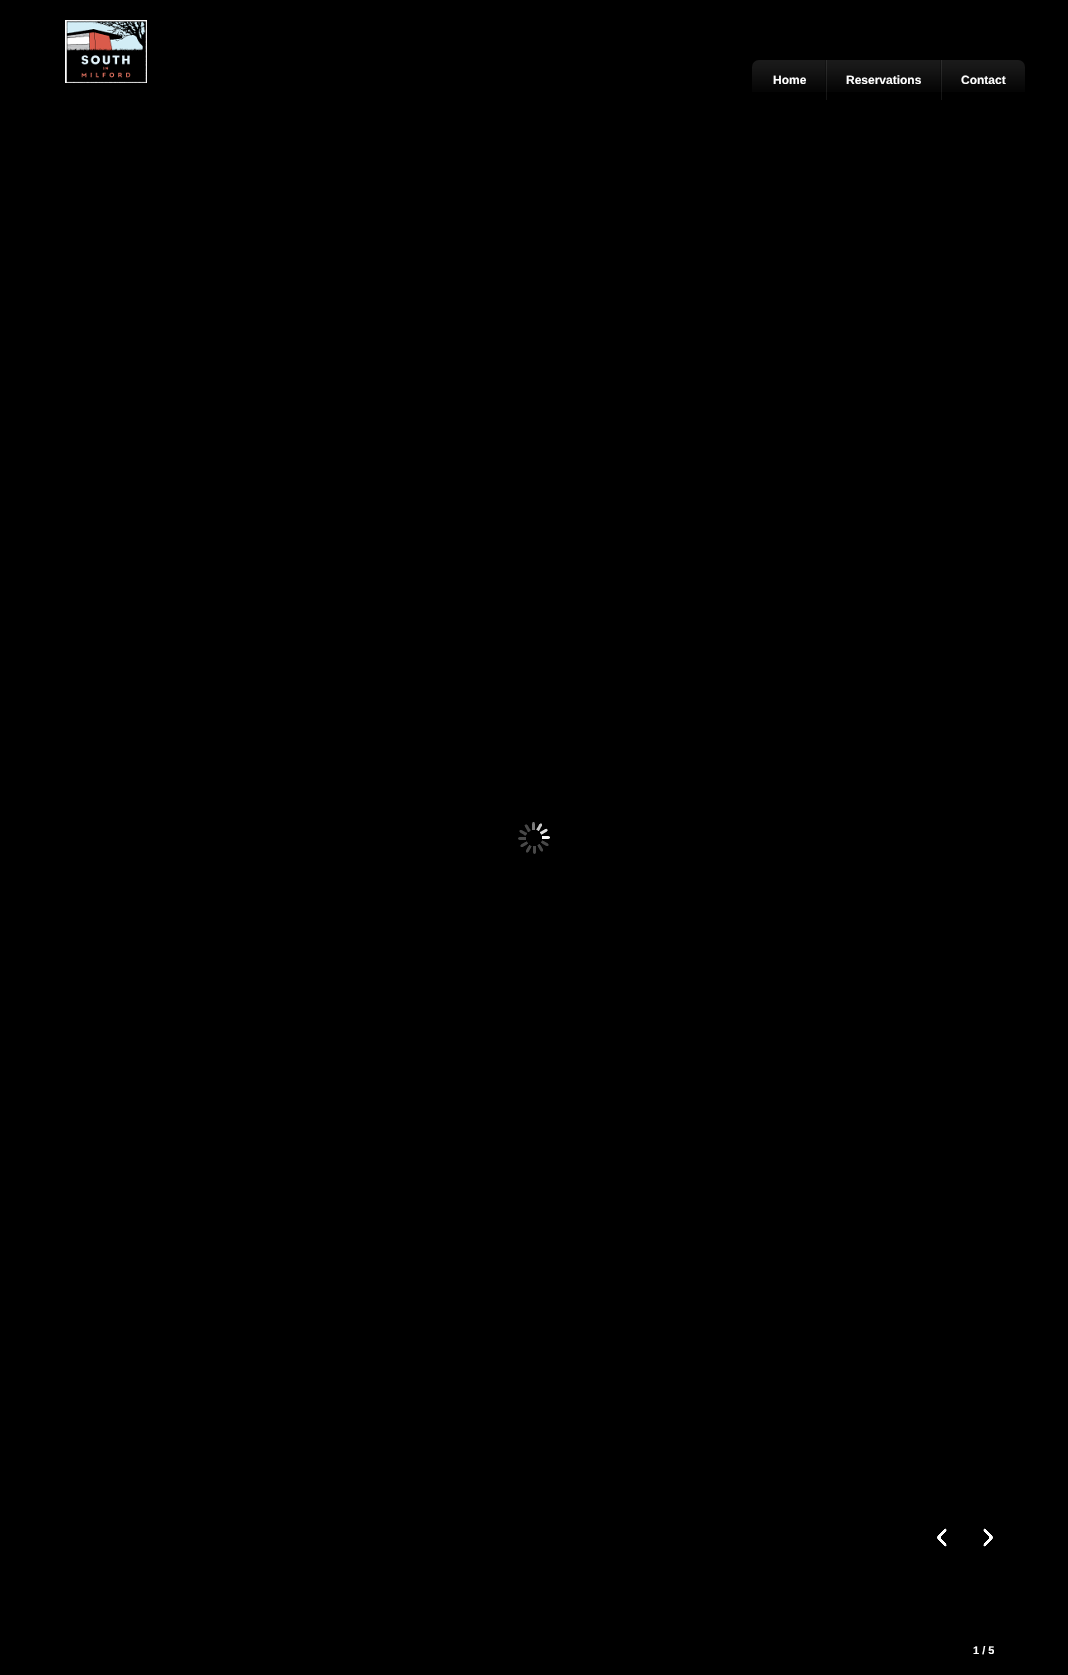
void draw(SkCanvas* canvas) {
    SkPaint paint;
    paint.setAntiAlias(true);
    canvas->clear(0xFF000000);
    canvas->drawImageRect(SkImages::DeferredFromEncodedData(SkData::MakeFromFileName("img1.png")), SkRect::MakeXYWH(65, 20, 82, 63), SkSamplingOptions());
    canvas->drawImageRect(SkImages::DeferredFromEncodedData(SkData::MakeFromFileName("img2.png")), SkRect::MakeXYWH(752, 60, 273, 32), SkSamplingOptions());
    SkFont font1(fontMgr->matchFamilyStyle("Liberation Sans", SkFontStyle::Bold()), 12);
    font1.setSubpixel(true);
    paint.setColor(0xFFFFFFFF);
    canvas->drawString("Home", 773, 84, font1, paint);
    canvas->drawImageRect(SkImages::DeferredFromEncodedData(SkData::MakeFromFileName("img3.png")), SkRect::MakeXYWH(825, 60, 2, 40), SkSamplingOptions());
    canvas->drawString("Reservations", 846, 84, font1, paint);
    canvas->drawImageRect(SkImages::DeferredFromEncodedData(SkData::MakeFromFileName("img4.png")), SkRect::MakeXYWH(940, 60, 2, 40), SkSamplingOptions());
    canvas->drawString("Contact", 961, 84, font1, paint);
    canvas->drawImageRect(SkImages::DeferredFromEncodedData(SkData::MakeFromFileName("img5.png")), SkRect::MakeXYWH(518, 822, 32, 32), SkSamplingOptions());
    canvas->drawImageRect(SkImages::DeferredFromEncodedData(SkData::MakeFromFileName("img6.png")), SkRect::MakeXYWH(937, 1528, 10, 19), SkSamplingOptions());
    canvas->drawImageRect(SkImages::DeferredFromEncodedData(SkData::MakeFromFileName("img7.png")), SkRect::MakeXYWH(983, 1528, 10, 19), SkSamplingOptions());
    SkFont font2(fontMgr->matchFamilyStyle("Liberation Sans", SkFontStyle::Bold()), 11);
    font2.setSubpixel(true);
    canvas->drawString("1 / 5", 973, 1654, font2, paint);
}
